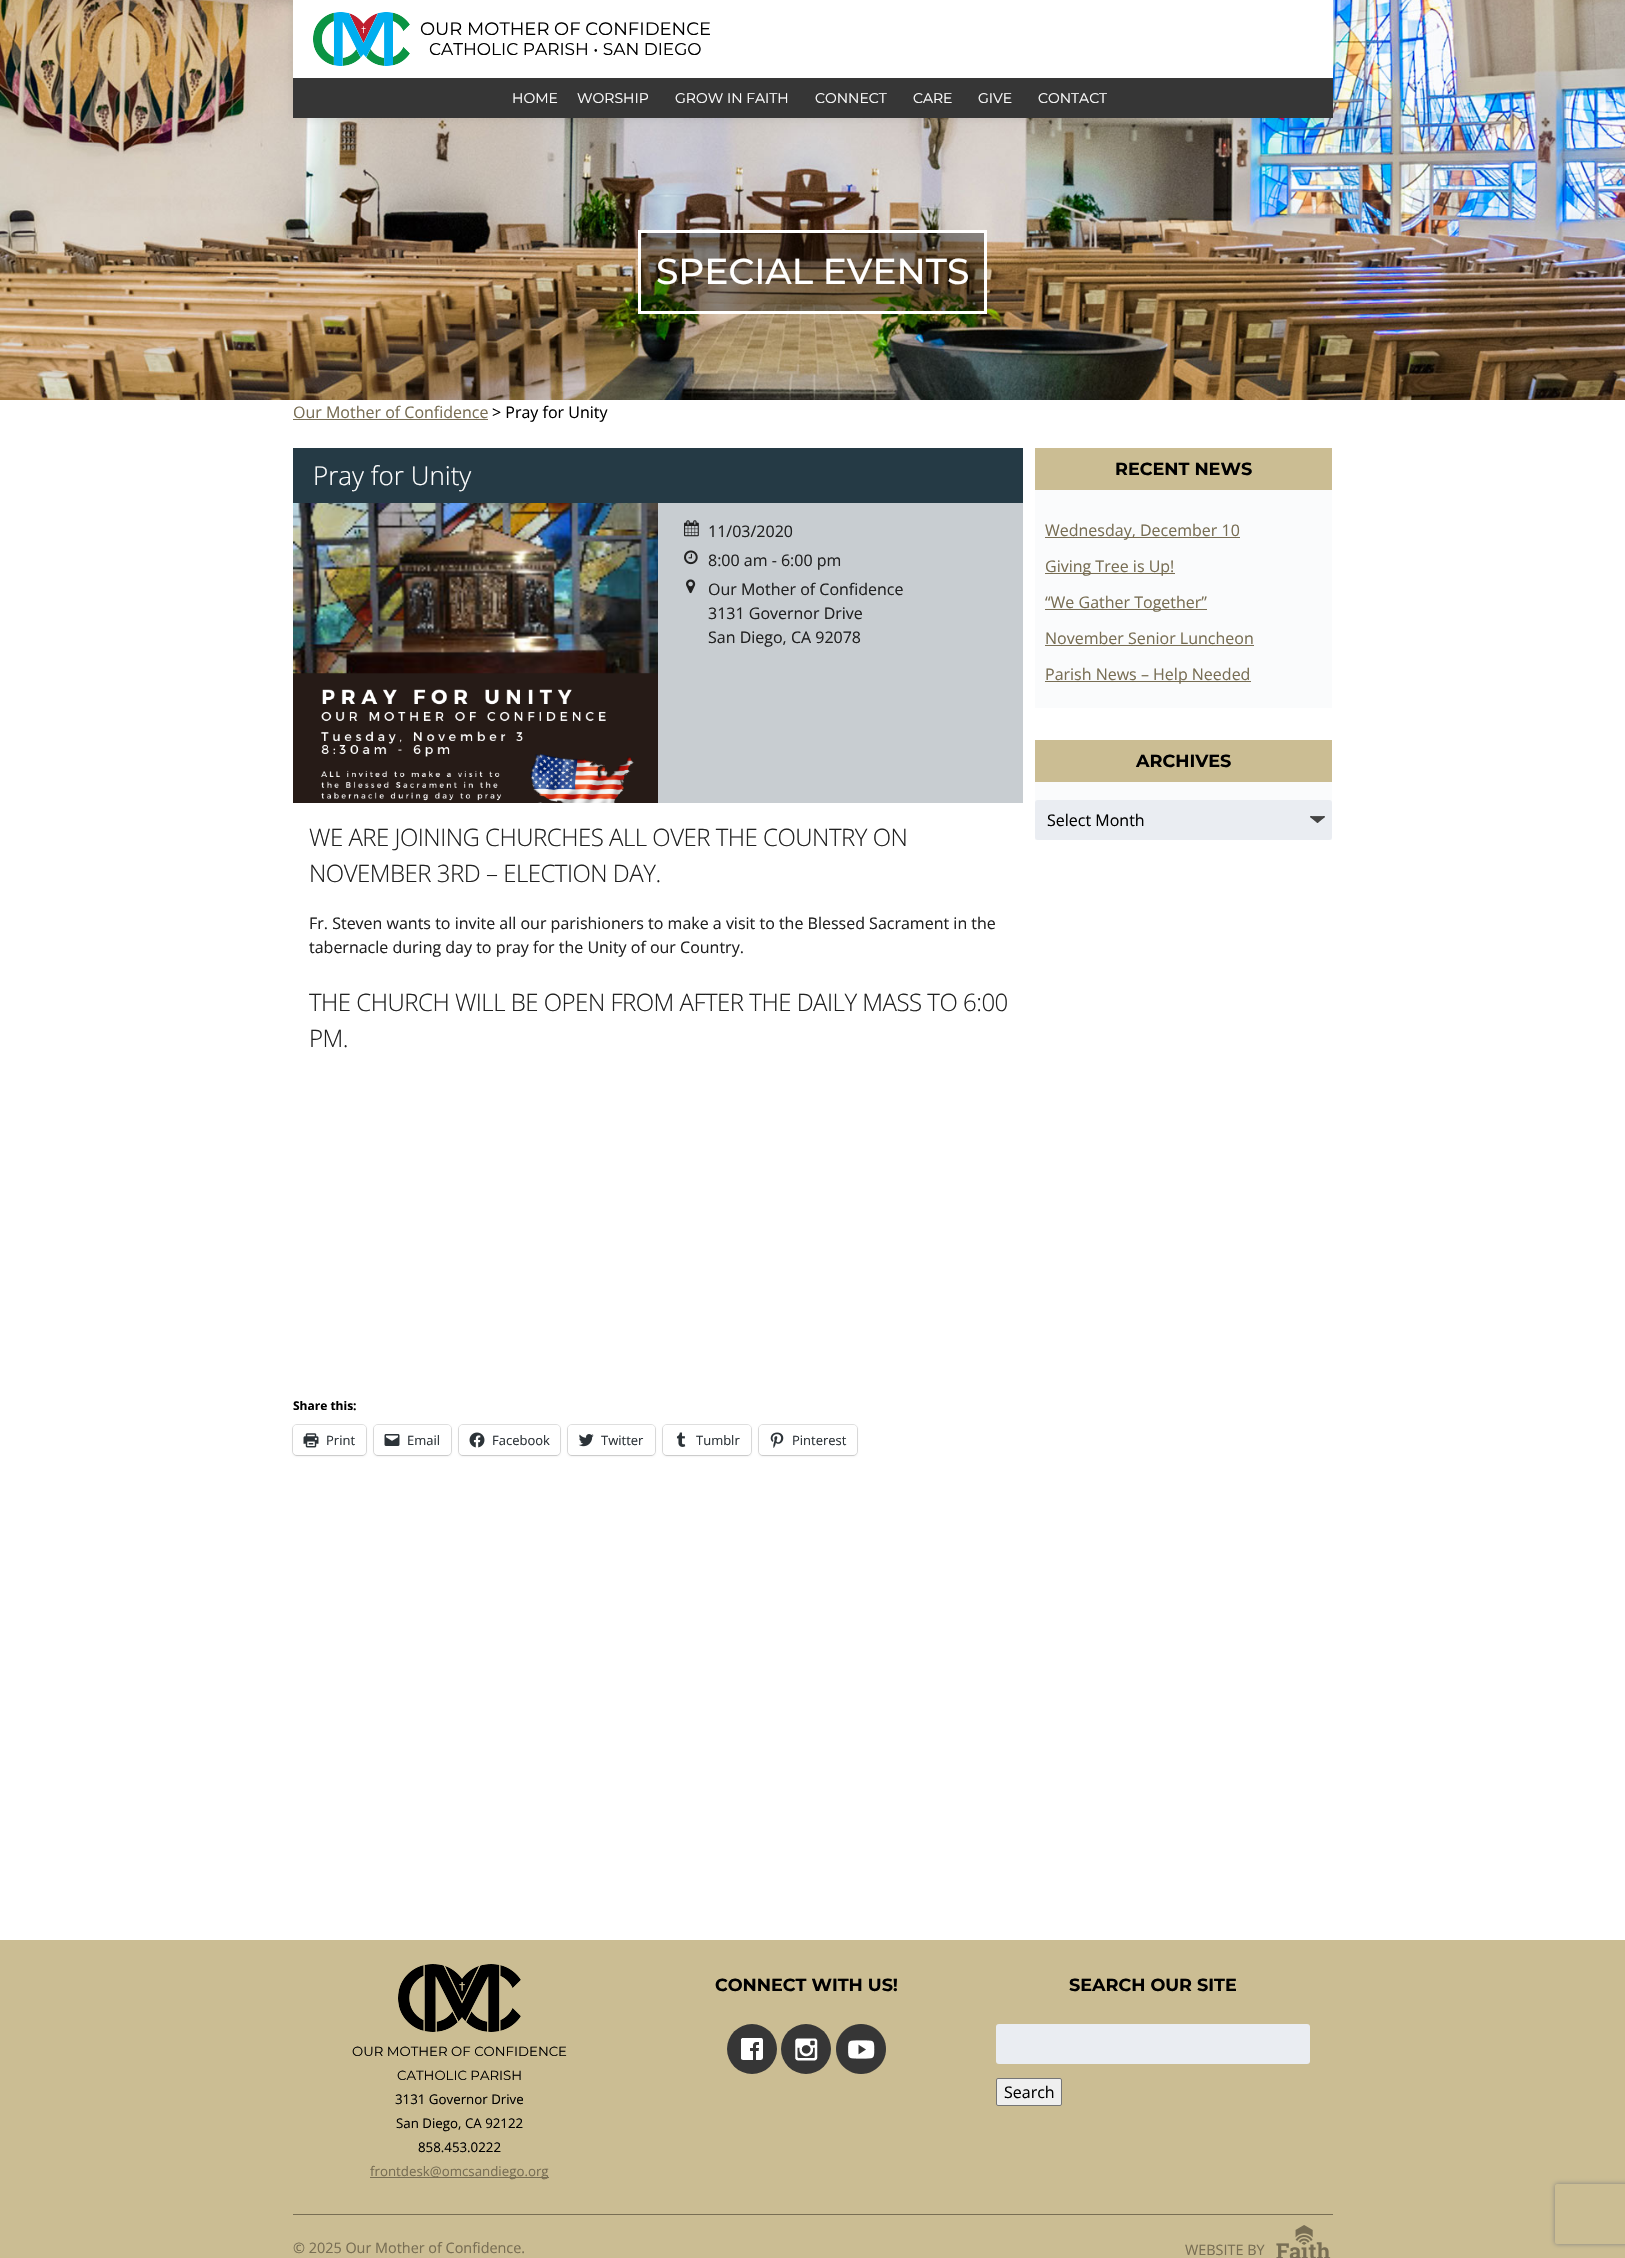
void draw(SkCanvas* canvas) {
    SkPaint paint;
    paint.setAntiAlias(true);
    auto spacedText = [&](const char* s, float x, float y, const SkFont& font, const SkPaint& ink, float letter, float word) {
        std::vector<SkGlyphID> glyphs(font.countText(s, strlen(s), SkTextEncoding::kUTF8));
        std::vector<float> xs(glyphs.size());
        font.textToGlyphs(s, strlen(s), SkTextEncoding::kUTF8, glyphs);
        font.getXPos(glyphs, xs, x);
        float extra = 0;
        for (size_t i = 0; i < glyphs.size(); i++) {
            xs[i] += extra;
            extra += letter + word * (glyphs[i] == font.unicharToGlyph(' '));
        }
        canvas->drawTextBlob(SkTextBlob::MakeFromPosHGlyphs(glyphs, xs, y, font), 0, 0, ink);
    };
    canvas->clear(0xFFFFFFFF);
    canvas->drawImageRect(SkImages::DeferredFromEncodedData(SkData::MakeFromFileName("img2.png")), SkRect::MakeXYWH(0, 0, 1625, 400), SkSamplingOptions());
    paint.setColor(0x1A000000);
    paint.setMaskFilter(SkMaskFilter::MakeBlur(kNormal_SkBlurStyle, 5));
    canvas->drawRect(SkRect::MakeXYWH(293, 0, 1040, 118), paint);
    paint.setMaskFilter(nullptr);
    paint.setColor(0xFFFFFFFF);
    canvas->drawRect(SkRect::MakeXYWH(293, 0, 1040, 78), paint);
    canvas->drawImageRect(SkImages::DeferredFromEncodedData(SkData::MakeFromFileName("img1.png")), SkRect::MakeXYWH(313, 12, 97, 54), SkSamplingOptions());
    SkFont font1(fontMgr->matchFamilyStyle("Montserrat", SkFontStyle::Normal()), 18);
    font1.setSubpixel(true);
    paint.setColor(0xFF000000);
    canvas->drawString("OUR MOTHER OF CONFIDENCE", 420, 35, font1, paint);
    SkFont font2(fontMgr->matchFamilyStyle("Montserrat", SkFontStyle::Normal()), 17);
    font2.setSubpixel(true);
    canvas->drawString("CATHOLIC PARISH • SAN DIEGO", 429, 55, font2, paint);
    paint.setColor(0xFF363636);
    canvas->drawRect(SkRect::MakeXYWH(293, 78, 1040, 40), paint);
    SkFont font3(fontMgr->matchFamilyStyle("Montserrat", SkFontStyle::Normal()), 14);
    font3.setSubpixel(true);
    paint.setColor(0xFFFFFFFF);
    canvas->drawString("HOME", 512, 103, font3, paint);
    canvas->drawString("WORSHIP", 577, 103, font3, paint);
    canvas->drawString("GROW IN FAITH", 675, 103, font3, paint);
    canvas->drawString("CONNECT", 815, 103, font3, paint);
    canvas->drawString("CARE", 913, 103, font3, paint);
    canvas->drawString("GIVE", 978, 103, font3, paint);
    canvas->drawString("CONTACT", 1038, 103, font3, paint);
    paint.setColor(0x66000000);
    canvas->drawRect(SkRect::MakeXYWH(639.5f, 231.5f, 346, 81), paint);
    paint.setStyle(SkPaint::kStroke_Style);
    paint.setStrokeWidth(3);
    paint.setColor(0xFFFFFFFF);
    canvas->drawRect(SkRect::MakeXYWH(639.5f, 231.5f, 346, 81), paint);
    SkFont font4(fontMgr->matchFamilyStyle("Montserrat", SkFontStyle(500, SkFontStyle::kNormal_Width, SkFontStyle::kUpright_Slant)), 36);
    font4.setSubpixel(true);
    paint.setStyle(SkPaint::kFill_Style);
    canvas->drawString("SPECIAL EVENTS", 656, 284, font4, paint);
    SkFont font5(fontMgr->matchFamilyStyle("Open Sans", SkFontStyle::Normal()), 16);
    font5.setSubpixel(true);
    paint.setColor(0xFF786E54);
    canvas->drawString("Our Mother of Confidence", 293, 418, font5, paint);
    canvas->drawRect(SkRect::MakeXYWH(293, 419, 195, 1), paint);
    paint.setColor(0xFF000000);
    canvas->drawString("> Pray for Unity", 492, 418, font5, paint);
    paint.setColor(0xFF253A45);
    canvas->drawRect(SkRect::MakeXYWH(293, 448, 730, 55), paint);
    SkFont font6(fontMgr->matchFamilyStyle("Open Sans", SkFontStyle(300, SkFontStyle::kNormal_Width, SkFontStyle::kUpright_Slant)), 26);
    font6.setSubpixel(true);
    paint.setColor(0xFFFFFFFF);
    canvas->drawString("Pray for Unity", 313, 485, font6, paint);
    canvas->drawImageRect(SkImages::DeferredFromEncodedData(SkData::MakeFromFileName("img3.png")), SkRect::MakeXYWH(293, 503, 365, 300), SkSamplingOptions());
    paint.setColor(0xFFC8CDD1);
    canvas->drawRect(SkRect::MakeXYWH(658, 503, 365, 300), paint);
    canvas->drawImageRect(SkImages::DeferredFromEncodedData(SkData::MakeFromFileName("img4.png")), SkRect::MakeXYWH(684, 520, 15, 17), SkSamplingOptions());
    paint.setColor(0xFF212121);
    canvas->drawString("11/03/2020", 708, 537, font5, paint);
    canvas->drawImageRect(SkImages::DeferredFromEncodedData(SkData::MakeFromFileName("img5.png")), SkRect::MakeXYWH(684, 550, 14, 15), SkSamplingOptions());
    canvas->drawString("8:00 am - 6:00 pm", 708, 566, font5, paint);
    canvas->drawImageRect(SkImages::DeferredFromEncodedData(SkData::MakeFromFileName("img6.png")), SkRect::MakeXYWH(686, 579, 10, 15), SkSamplingOptions());
    canvas->drawString("Our Mother of Confidence", 708, 595, font5, paint);
    canvas->drawString("3131 Governor Drive", 708, 619, font5, paint);
    canvas->drawString("San Diego, CA 92078", 708, 643, font5, paint);
    SkFont font7(fontMgr->matchFamilyStyle("Open Sans", SkFontStyle(300, SkFontStyle::kNormal_Width, SkFontStyle::kUpright_Slant)), 24);
    font7.setSubpixel(true);
    spacedText("WE ARE JOINING CHURCHES ALL OVER THE COUNTRY ON", 309, 846, font7, paint, -0.5f, 0);
    spacedText("NOVEMBER 3RD – ELECTION DAY.", 309, 882, font7, paint, -0.5f, 0);
    canvas->drawString("Fr. Steven wants to invite all our parishioners to make a visit to the Blessed Sacrament in the", 309, 929, font5, paint);
    canvas->drawString("tabernacle during day to pray for the Unity of our Country.", 309, 953, font5, paint);
    spacedText("THE CHURCH WILL BE OPEN FROM AFTER THE DAILY MASS TO 6:00", 309, 1011, font7, paint, -0.5f, 0);
    spacedText("PM.", 309, 1047, font7, paint, -0.5f, 0);
    SkFont font8(fontMgr->matchFamilyStyle("Open Sans", SkFontStyle::Bold()), 12);
    font8.setSubpixel(true);
    paint.setColor(0xFF000000);
    canvas->drawString("Share this:", 293, 1410, font8, paint);
    paint.setStyle(SkPaint::kStroke_Style);
    paint.setStrokeWidth(1);
    paint.setColor(0xFFE0E0E0);
    canvas->drawRoundRect(SkRect::MakeXYWH(292.5f, 1424.5f, 74, 31), 4.5f, 4.5f, paint);
    paint.setStyle(SkPaint::kFill_Style);
    paint.setColor(0x1F000000);
    paint.setMaskFilter(SkMaskFilter::MakeBlur(kNormal_SkBlurStyle, 1));
    canvas->drawRoundRect(SkRect::MakeXYWH(293, 1426, 73, 30), 4, 4, paint);
    paint.setMaskFilter(nullptr);
    paint.setColor(0xFFFFFFFF);
    canvas->drawRoundRect(SkRect::MakeXYWH(293, 1425, 73, 30), 4, 4, paint);
    canvas->drawImageRect(SkImages::DeferredFromEncodedData(SkData::MakeFromFileName("img7.png")), SkRect::MakeXYWH(303, 1433, 16, 15), SkSamplingOptions());
    SkFont font9(fontMgr->matchFamilyStyle("Open Sans", SkFontStyle::Normal()), 13);
    font9.setSubpixel(true);
    paint.setColor(0xFF2C3338);
    canvas->drawString("Print", 326, 1445, font9, paint);
    paint.setStyle(SkPaint::kStroke_Style);
    paint.setColor(0xFFE0E0E0);
    canvas->drawRoundRect(SkRect::MakeXYWH(373.5f, 1424.5f, 78, 31), 4.5f, 4.5f, paint);
    paint.setStyle(SkPaint::kFill_Style);
    paint.setColor(0x1F000000);
    paint.setMaskFilter(SkMaskFilter::MakeBlur(kNormal_SkBlurStyle, 1));
    canvas->drawRoundRect(SkRect::MakeXYWH(374, 1426, 77, 30), 4, 4, paint);
    paint.setMaskFilter(nullptr);
    paint.setColor(0xFFFFFFFF);
    canvas->drawRoundRect(SkRect::MakeXYWH(374, 1425, 77, 30), 4, 4, paint);
    canvas->drawImageRect(SkImages::DeferredFromEncodedData(SkData::MakeFromFileName("img8.png")), SkRect::MakeXYWH(384, 1434, 16, 12), SkSamplingOptions());
    paint.setColor(0xFF2C3338);
    canvas->drawString("Email", 407, 1445, font9, paint);
    paint.setStyle(SkPaint::kStroke_Style);
    paint.setColor(0xFFE0E0E0);
    canvas->drawRoundRect(SkRect::MakeXYWH(458.5f, 1424.5f, 102, 31), 4.5f, 4.5f, paint);
    paint.setStyle(SkPaint::kFill_Style);
    paint.setColor(0x1F000000);
    paint.setMaskFilter(SkMaskFilter::MakeBlur(kNormal_SkBlurStyle, 1));
    canvas->drawRoundRect(SkRect::MakeXYWH(459, 1426, 101, 30), 4, 4, paint);
    paint.setMaskFilter(nullptr);
    paint.setColor(0xFFFFFFFF);
    canvas->drawRoundRect(SkRect::MakeXYWH(459, 1425, 101, 30), 4, 4, paint);
    canvas->drawImageRect(SkImages::DeferredFromEncodedData(SkData::MakeFromFileName("img9.png")), SkRect::MakeXYWH(469, 1432, 16, 16), SkSamplingOptions());
    paint.setColor(0xFF2C3338);
    canvas->drawString("Facebook", 492, 1445, font9, paint);
    paint.setStyle(SkPaint::kStroke_Style);
    paint.setColor(0xFFE0E0E0);
    canvas->drawRoundRect(SkRect::MakeXYWH(567.5f, 1424.5f, 88, 31), 4.5f, 4.5f, paint);
    paint.setStyle(SkPaint::kFill_Style);
    paint.setColor(0x1F000000);
    paint.setMaskFilter(SkMaskFilter::MakeBlur(kNormal_SkBlurStyle, 1));
    canvas->drawRoundRect(SkRect::MakeXYWH(568, 1426, 87, 30), 4, 4, paint);
    paint.setMaskFilter(nullptr);
    paint.setColor(0xFFFFFFFF);
    canvas->drawRoundRect(SkRect::MakeXYWH(568, 1425, 87, 30), 4, 4, paint);
    canvas->drawImageRect(SkImages::DeferredFromEncodedData(SkData::MakeFromFileName("img10.png")), SkRect::MakeXYWH(578, 1434, 16, 13), SkSamplingOptions());
    paint.setColor(0xFF2C3338);
    canvas->drawString("Twitter", 601, 1445, font9, paint);
    paint.setStyle(SkPaint::kStroke_Style);
    paint.setColor(0xFFE0E0E0);
    canvas->drawRoundRect(SkRect::MakeXYWH(662.5f, 1424.5f, 89, 31), 4.5f, 4.5f, paint);
    paint.setStyle(SkPaint::kFill_Style);
    paint.setColor(0x1F000000);
    paint.setMaskFilter(SkMaskFilter::MakeBlur(kNormal_SkBlurStyle, 1));
    canvas->drawRoundRect(SkRect::MakeXYWH(663, 1426, 88, 30), 4, 4, paint);
    paint.setMaskFilter(nullptr);
    paint.setColor(0xFFFFFFFF);
    canvas->drawRoundRect(SkRect::MakeXYWH(663, 1425, 88, 30), 4, 4, paint);
    canvas->drawImageRect(SkImages::DeferredFromEncodedData(SkData::MakeFromFileName("img11.png")), SkRect::MakeXYWH(676, 1432, 10, 15), SkSamplingOptions());
    paint.setColor(0xFF2C3338);
    canvas->drawString("Tumblr", 696, 1445, font9, paint);
    paint.setStyle(SkPaint::kStroke_Style);
    paint.setColor(0xFFE0E0E0);
    canvas->drawRoundRect(SkRect::MakeXYWH(758.5f, 1424.5f, 99, 31), 4.5f, 4.5f, paint);
    paint.setStyle(SkPaint::kFill_Style);
    paint.setColor(0x1F000000);
    paint.setMaskFilter(SkMaskFilter::MakeBlur(kNormal_SkBlurStyle, 1));
    canvas->drawRoundRect(SkRect::MakeXYWH(759, 1426, 98, 30), 4, 4, paint);
    paint.setMaskFilter(nullptr);
    paint.setColor(0xFFFFFFFF);
    canvas->drawRoundRect(SkRect::MakeXYWH(759, 1425, 98, 30), 4, 4, paint);
    canvas->drawImageRect(SkImages::DeferredFromEncodedData(SkData::MakeFromFileName("img12.png")), SkRect::MakeXYWH(770, 1432, 14, 16), SkSamplingOptions());
    paint.setColor(0xFF2C3338);
    canvas->drawString("Pinterest", 792, 1445, font9, paint);
    paint.setColor(0xFFFAFBFC);
    canvas->drawRect(SkRect::MakeXYWH(1035, 490, 297, 218), paint);
    paint.setColor(0xFFCBBD93);
    canvas->drawRect(SkRect::MakeXYWH(1035, 448, 297, 42), paint);
    SkFont font10(fontMgr->matchFamilyStyle("Montserrat", SkFontStyle::Bold()), 17.6f);
    font10.setSubpixel(true);
    paint.setColor(0xFF000000);
    canvas->drawString("RECENT NEWS", 1115, 475, font10, paint);
    paint.setColor(0xFF786E54);
    canvas->drawRect(SkRect::MakeXYWH(1045, 537, 195, 1), paint);
    canvas->drawString("Wednesday, December 10", 1045, 536, font5, paint);
    canvas->drawRect(SkRect::MakeXYWH(1045, 573, 130, 1), paint);
    canvas->drawString("Giving Tree is Up!", 1045, 572, font5, paint);
    canvas->drawRect(SkRect::MakeXYWH(1045, 609, 162, 1), paint);
    canvas->drawString("“We Gather Together”", 1045, 608, font5, paint);
    canvas->drawString("November Senior Luncheon", 1045, 644, font5, paint);
    canvas->drawRect(SkRect::MakeXYWH(1045, 645, 209, 1), paint);
    canvas->drawRect(SkRect::MakeXYWH(1045, 681, 206, 1), paint);
    canvas->drawString("Parish News – Help Needed", 1045, 680, font5, paint);
    paint.setColor(0xFFFAFBFC);
    canvas->drawRect(SkRect::MakeXYWH(1035, 782, 297, 58), paint);
    paint.setColor(0xFFCBBD93);
    canvas->drawRect(SkRect::MakeXYWH(1035, 740, 297, 42), paint);
    paint.setColor(0xFF000000);
    canvas->drawString("ARCHIVES", 1136, 767, font10, paint);
    paint.setColor(0xFFEAEDF2);
    canvas->drawRoundRect(SkRect::MakeXYWH(1035, 800, 297, 40), 3, 3, paint);
    canvas->drawImageRect(SkImages::DeferredFromEncodedData(SkData::MakeFromFileName("img13.png")), SkRect::MakeXYWH(1310, 816, 15, 7), SkSamplingOptions());
    paint.setColor(0xFF000000);
    canvas->drawString("Select Month", 1047, 826, font5, paint);
    paint.setColor(0xFFCBBD93);
    canvas->drawRect(SkRect::MakeXYWH(0, 1940, 1625, 318), paint);
    canvas->drawImageRect(SkImages::DeferredFromEncodedData(SkData::MakeFromFileName("img14.png")), SkRect::MakeXYWH(398, 1964, 123, 68), SkSamplingOptions());
    SkFont font11(fontMgr->matchFamilyStyle("Montserrat", SkFontStyle::Normal()), 13.3f);
    font11.setSubpixel(true);
    paint.setColor(0xFF000000);
    canvas->drawString("OUR MOTHER OF CONFIDENCE", 352, 2056, font11, paint);
    canvas->drawString("CATHOLIC PARISH", 397, 2080, font11, paint);
    SkFont font12(fontMgr->matchFamilyStyle("Open Sans", SkFontStyle::Normal()), 13.3f);
    font12.setSubpixel(true);
    canvas->drawString("3131 Governor Drive", 395, 2104, font12, paint);
    canvas->drawString("San Diego, CA 92122", 396, 2128, font12, paint);
    canvas->drawString("858.453.0222", 418, 2152, font12, paint);
    paint.setColor(0xFF786E54);
    canvas->drawRect(SkRect::MakeXYWH(370, 2177, 179, 1), paint);
    canvas->drawString("frontdesk@omcsandiego.org", 370, 2176, font12, paint);
    paint.setColor(0xFF000000);
    canvas->drawString("CONNECT WITH US!", 715, 1991, font10, paint);
    canvas->drawImageRect(SkImages::DeferredFromEncodedData(SkData::MakeFromFileName("img15.png")), SkRect::MakeXYWH(727, 2024, 50, 50), SkSamplingOptions());
    canvas->drawImageRect(SkImages::DeferredFromEncodedData(SkData::MakeFromFileName("img16.png")), SkRect::MakeXYWH(781, 2024, 50, 50), SkSamplingOptions());
    canvas->drawImageRect(SkImages::DeferredFromEncodedData(SkData::MakeFromFileName("img17.png")), SkRect::MakeXYWH(836, 2024, 50, 50), SkSamplingOptions());
    canvas->drawString("SEARCH OUR SITE", 1069, 1991, font10, paint);
    paint.setColor(0xFFEAEDF2);
    canvas->drawRoundRect(SkRect::MakeXYWH(996, 2024, 314, 40), 3, 3, paint);
    paint.setColor(0xFFEFEFEF);
    canvas->drawRoundRect(SkRect::MakeXYWH(996.5f, 2078.5f, 65, 27), 1.5f, 1.5f, paint);
    paint.setStyle(SkPaint::kStroke_Style);
    paint.setColor(0xFF767676);
    canvas->drawRoundRect(SkRect::MakeXYWH(996.5f, 2078.5f, 65, 27), 1.5f, 1.5f, paint);
    paint.setStyle(SkPaint::kFill_Style);
    paint.setColor(0xFF000000);
    canvas->drawString("Search", 1004, 2098, font5, paint);
    paint.setColor(0xFF786E54);
    canvas->drawRect(SkRect::MakeXYWH(293, 2214, 1040, 1), paint);
    SkFont font13(fontMgr->matchFamilyStyle("Open Sans", SkFontStyle::Normal()), 14.4f);
    font13.setSubpixel(true);
    canvas->drawString("© 2025 Our Mother of Confidence.", 293, 2253, font13, paint);
    canvas->drawString("WEBSITE BY", 1185, 2255, font13, paint);
    canvas->drawImageRect(SkImages::DeferredFromEncodedData(SkData::MakeFromFileName("img18.png")), SkRect::MakeXYWH(1276, 2225, 55, 33), SkSamplingOptions());
    canvas->save();
    canvas->clipPath(SkPathBuilder(SkPathFillType::kEvenOdd).moveTo(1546, 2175).lineTo(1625, 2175).lineTo(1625, 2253).lineTo(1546, 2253).close().moveTo(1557, 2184).lineTo(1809, 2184).cubicTo(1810, 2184, 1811, 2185, 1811, 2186).lineTo(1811, 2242).cubicTo(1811, 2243, 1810, 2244, 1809, 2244).lineTo(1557, 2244).cubicTo(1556, 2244, 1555, 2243, 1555, 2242).lineTo(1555, 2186).cubicTo(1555, 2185, 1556, 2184, 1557, 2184).close().detach(), true);
    paint.setColor(0xFF808080);
    paint.setMaskFilter(SkMaskFilter::MakeBlur(kNormal_SkBlurStyle, 2.5f));
    canvas->drawRoundRect(SkRect::MakeXYWH(1555, 2184, 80, 60), 2, 2, paint);
    paint.setMaskFilter(nullptr);
    canvas->restore();
}
